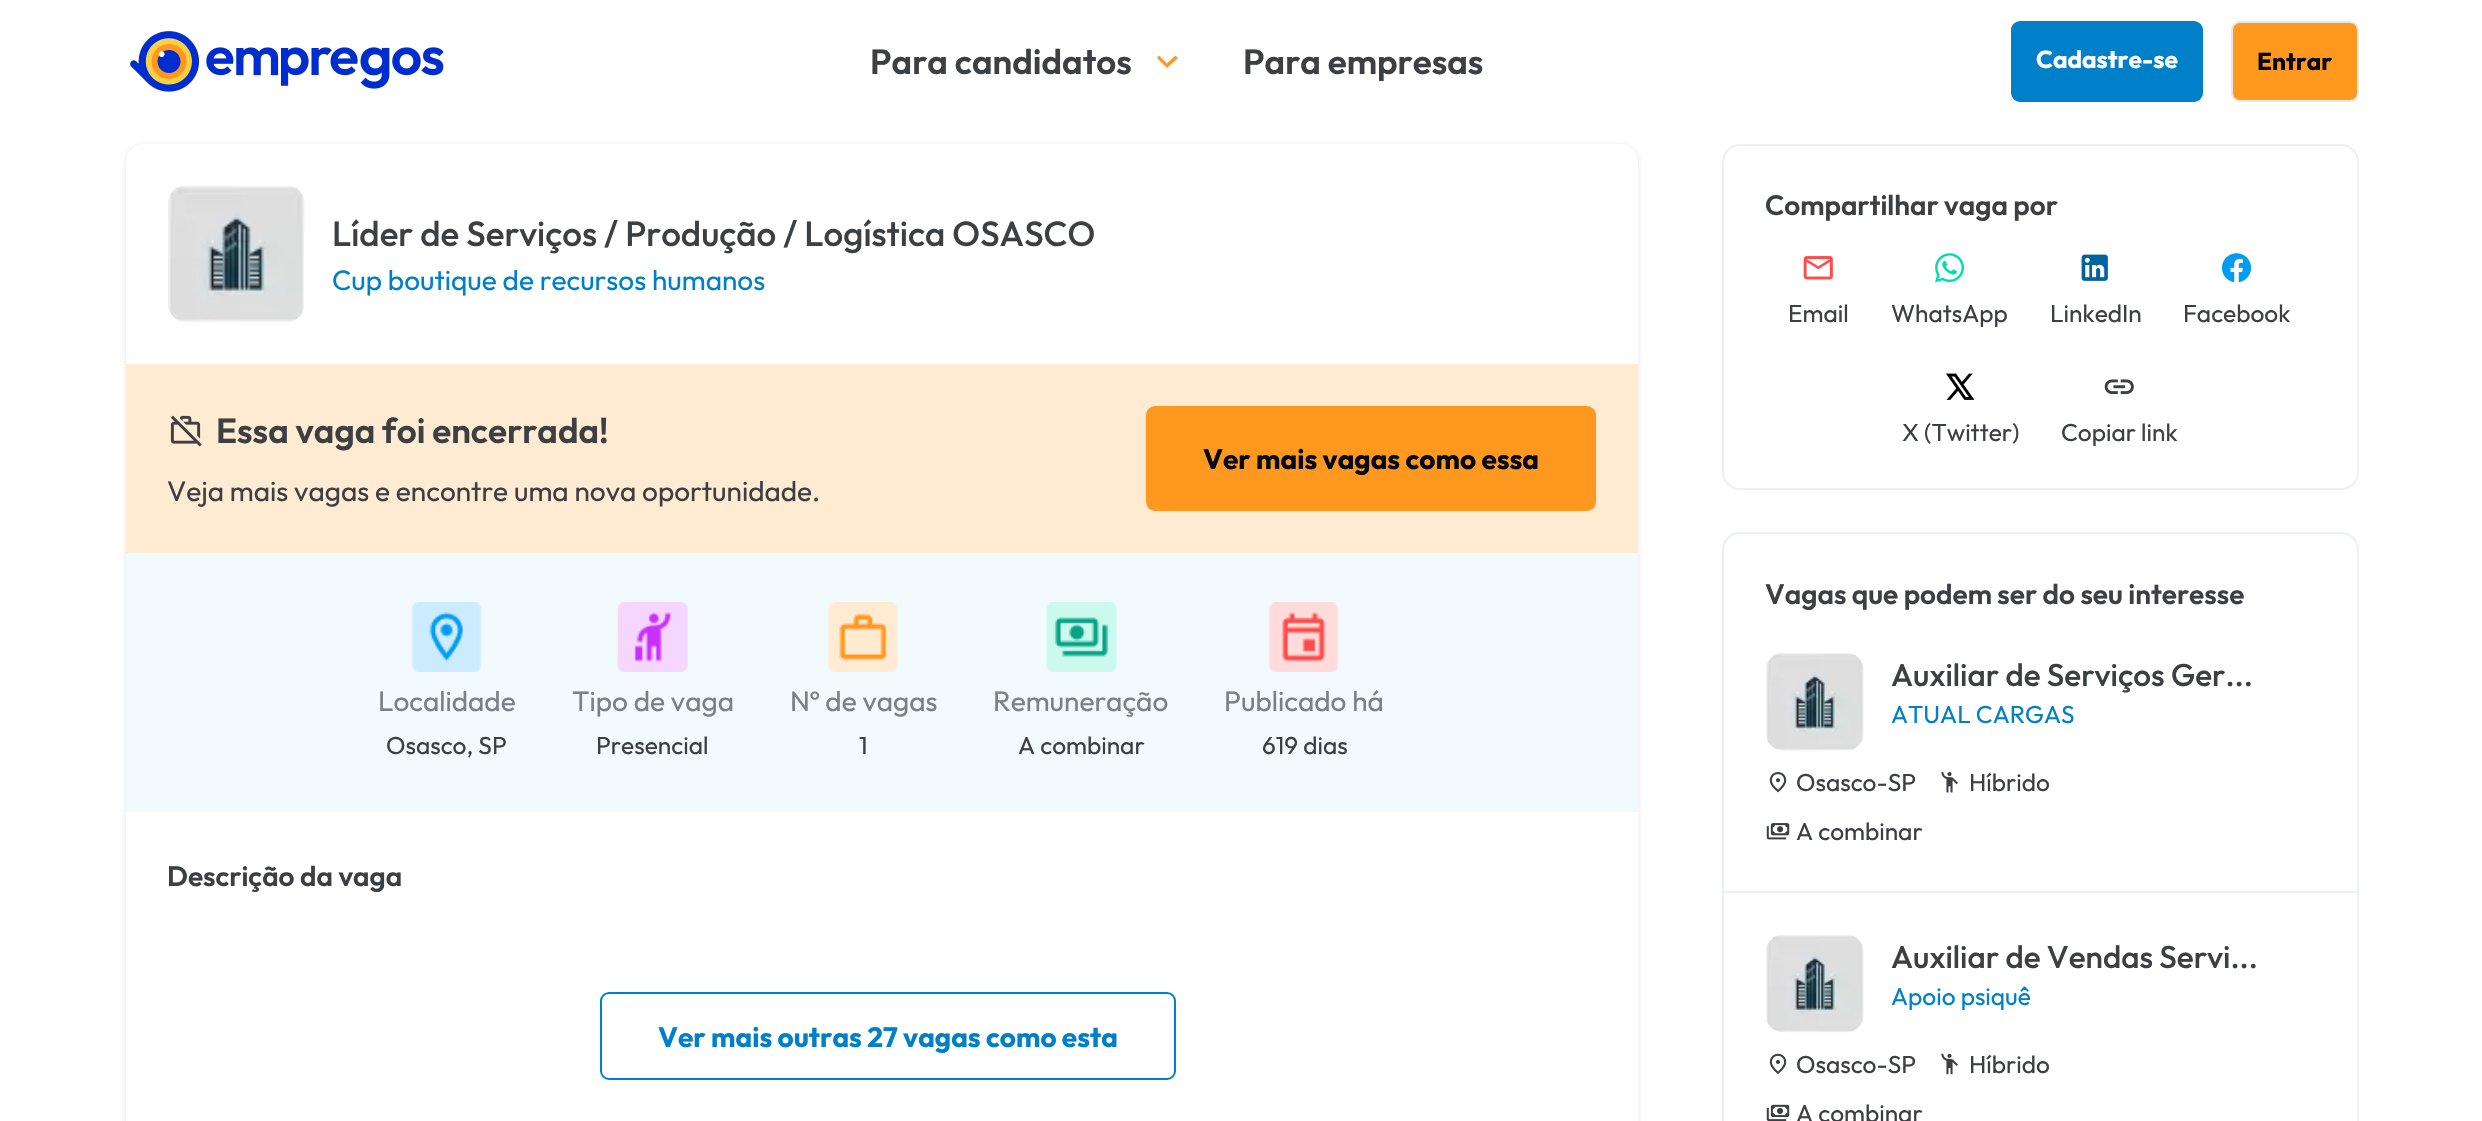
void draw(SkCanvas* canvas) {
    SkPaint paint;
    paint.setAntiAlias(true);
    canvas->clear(0xFFFFFFFF);
    canvas->drawImageRect(SkImages::DeferredFromEncodedData(SkData::MakeFromFileName("img1.png")), SkRect::MakeXYWH(130, 31, 314, 61), SkSamplingOptions());
    SkFont font1(fontMgr->matchFamilyStyle("Outfit", SkFontStyle(600, SkFontStyle::kNormal_Width, SkFontStyle::kUpright_Slant)), 35);
    font1.setSubpixel(true);
    paint.setColor(0xFF3C4043);
    canvas->drawString("Para candidatos", 870, 74, font1, paint);
    paint.setColor(0xFFFF981F);
    canvas->drawPath(SkPathBuilder().moveTo(1159, 55.5f).lineTo(1167, 63.5f).lineTo(1175.5f, 55.5f).lineTo(1178, 58).lineTo(1167, 68).lineTo(1157, 58).close().detach(), paint);
    paint.setColor(0xFF3C4043);
    canvas->drawString("Para empresas", 1243, 74, font1, paint);
    paint.setColor(0xFF0080C9);
    canvas->drawRoundRect(SkRect::MakeXYWH(2011, 21, 192, 81), 9, 9, paint);
    SkFont font2(fontMgr->matchFamilyStyle("Outfit", SkFontStyle::Bold()), 24.5f);
    font2.setSubpixel(true);
    paint.setColor(0xFFFFFFFF);
    canvas->drawString("Cadastre-se", 2036, 68, font2, paint);
    paint.setColor(0xFFFF981F);
    canvas->drawRoundRect(SkRect::MakeXYWH(2232, 22, 126, 79), 8, 8, paint);
    paint.setStyle(SkPaint::kStroke_Style);
    paint.setStrokeWidth(2);
    paint.setColor(0xFFE5E7EB);
    canvas->drawRoundRect(SkRect::MakeXYWH(2232, 22, 126, 79), 8, 8, paint);
    paint.setStyle(SkPaint::kFill_Style);
    paint.setColor(0xFF030712);
    canvas->drawString("Entrar", 2257, 70, font2, paint);
    paint.setColor(0x1A000000);
    paint.setMaskFilter(SkMaskFilter::MakeBlur(kNormal_SkBlurStyle, 2.5f));
    canvas->drawRoundRect(SkRect::MakeXYWH(126, 145, 1512, 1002), 18, 18, paint);
    paint.setMaskFilter(nullptr);
    paint.setColor(0xFFFFFFFF);
    canvas->drawRoundRect(SkRect::MakeXYWH(126, 144, 1512, 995), 18, 18, paint);
    canvas->drawImageRect(SkImages::DeferredFromEncodedData(SkData::MakeFromFileName("img2.png")), SkRect::MakeXYWH(168, 185, 137, 137), SkSamplingOptions());
    SkFont font3(fontMgr->matchFamilyStyle("Outfit", SkFontStyle(500, SkFontStyle::kNormal_Width, SkFontStyle::kUpright_Slant)), 35);
    font3.setSubpixel(true);
    paint.setColor(0xFF3C4043);
    canvas->drawString("Líder de Serviços / Produção / Logística OSASCO", 332, 246, font3, paint);
    SkFont font4(fontMgr->matchFamilyStyle("Outfit", SkFontStyle::Normal()), 28);
    font4.setSubpixel(true);
    paint.setColor(0xFF0080C9);
    canvas->drawString("Cup boutique de recursos humanos", 332, 290, font4, paint);
    paint.setColor(0xFFFFEAD2);
    canvas->drawRect(SkRect::MakeXYWH(126, 364, 1512, 189), paint);
    canvas->drawImageRect(SkImages::DeferredFromEncodedData(SkData::MakeFromFileName("img3.png")), SkRect::MakeXYWH(170, 415, 32, 32), SkSamplingOptions());
    paint.setColor(0xFF3C4043);
    canvas->drawString("Essa vaga foi encerrada!", 216, 443, font1, paint);
    canvas->drawString("Veja mais vagas e encontre uma nova oportunidade.", 167, 501, font4, paint);
    paint.setColor(0xFFFF981F);
    canvas->drawRoundRect(SkRect::MakeXYWH(1146, 406, 450, 105), 9, 9, paint);
    SkFont font5(fontMgr->matchFamilyStyle("Outfit", SkFontStyle::Bold()), 28);
    font5.setSubpixel(true);
    paint.setColor(0xFF030712);
    canvas->drawString("Ver mais vagas como essa", 1203, 469, font5, paint);
    paint.setColor(0xFFF2FAFE);
    canvas->drawRect(SkRect::MakeXYWH(126, 553, 1512, 259), paint);
    canvas->drawImageRect(SkImages::DeferredFromEncodedData(SkData::MakeFromFileName("img4.png")), SkRect::MakeXYWH(411, 602, 71, 70), SkSamplingOptions());
    paint.setColor(0xFF798086);
    canvas->drawString("Localidade", 378, 711, font4, paint);
    SkFont font6(fontMgr->matchFamilyStyle("Outfit", SkFontStyle::Normal()), 24.5f);
    font6.setSubpixel(true);
    paint.setColor(0xFF3C4043);
    canvas->drawString("Osasco, SP", 386, 754, font6, paint);
    canvas->drawImageRect(SkImages::DeferredFromEncodedData(SkData::MakeFromFileName("img5.png")), SkRect::MakeXYWH(617, 602, 71, 70), SkSamplingOptions());
    paint.setColor(0xFF798086);
    canvas->drawString("Tipo de vaga", 572, 711, font4, paint);
    paint.setColor(0xFF3C4043);
    canvas->drawString("Presencial", 596, 754, font6, paint);
    canvas->drawImageRect(SkImages::DeferredFromEncodedData(SkData::MakeFromFileName("img6.png")), SkRect::MakeXYWH(828, 602, 70, 70), SkSamplingOptions());
    paint.setColor(0xFF798086);
    canvas->drawString("Nº de vagas", 790, 711, font4, paint);
    paint.setColor(0xFF3C4043);
    canvas->drawString("1", 859, 754, font6, paint);
    canvas->drawImageRect(SkImages::DeferredFromEncodedData(SkData::MakeFromFileName("img7.png")), SkRect::MakeXYWH(1046, 602, 71, 70), SkSamplingOptions());
    paint.setColor(0xFF798086);
    canvas->drawString("Remuneração", 993, 711, font4, paint);
    paint.setColor(0xFF3C4043);
    canvas->drawString("A combinar", 1018, 754, font6, paint);
    canvas->drawImageRect(SkImages::DeferredFromEncodedData(SkData::MakeFromFileName("img8.png")), SkRect::MakeXYWH(1268, 602, 71, 70), SkSamplingOptions());
    paint.setColor(0xFF798086);
    canvas->drawString("Publicado há", 1224, 711, font4, paint);
    paint.setColor(0xFF3C4043);
    canvas->drawString("619 dias", 1262, 754, font6, paint);
    SkFont font7(fontMgr->matchFamilyStyle("Outfit", SkFontStyle(600, SkFontStyle::kNormal_Width, SkFontStyle::kUpright_Slant)), 28);
    font7.setSubpixel(true);
    canvas->drawString("Descrição da vaga", 167, 886, font7, paint);
    paint.setStyle(SkPaint::kStroke_Style);
    paint.setColor(0xFF0080C9);
    canvas->drawRoundRect(SkRect::MakeXYWH(601, 993, 574, 86), 8, 8, paint);
    paint.setStyle(SkPaint::kFill_Style);
    canvas->drawString("Ver mais outras 27 vagas como esta", 658, 1047, font5, paint);
    paint.setStyle(SkPaint::kStroke_Style);
    paint.setColor(0xFFEDF1F2);
    canvas->drawRoundRect(SkRect::MakeXYWH(1723, 145, 635, 344), 17, 17, paint);
    paint.setStyle(SkPaint::kFill_Style);
    paint.setColor(0xFF3C4043);
    canvas->drawString("Compartilhar vaga por", 1765, 215, font7, paint);
    canvas->drawImageRect(SkImages::DeferredFromEncodedData(SkData::MakeFromFileName("img9.png")), SkRect::MakeXYWH(1803, 256, 30, 24), SkSamplingOptions());
    canvas->drawString("Email", 1788, 322, font6, paint);
    canvas->drawImageRect(SkImages::DeferredFromEncodedData(SkData::MakeFromFileName("img10.png")), SkRect::MakeXYWH(1935, 253, 29, 30), SkSamplingOptions());
    canvas->drawString("WhatsApp", 1891, 322, font6, paint);
    canvas->drawImageRect(SkImages::DeferredFromEncodedData(SkData::MakeFromFileName("img11.png")), SkRect::MakeXYWH(2081, 254, 27, 27), SkSamplingOptions());
    canvas->drawString("LinkedIn", 2050, 322, font6, paint);
    canvas->drawImageRect(SkImages::DeferredFromEncodedData(SkData::MakeFromFileName("img12.png")), SkRect::MakeXYWH(2221, 253, 31, 30), SkSamplingOptions());
    canvas->drawString("Facebook", 2183, 322, font6, paint);
    canvas->drawImageRect(SkImages::DeferredFromEncodedData(SkData::MakeFromFileName("img13.png")), SkRect::MakeXYWH(1946, 373, 29, 27), SkSamplingOptions());
    canvas->drawString("X (Twitter)", 1902, 441, font6, paint);
    canvas->drawImageRect(SkImages::DeferredFromEncodedData(SkData::MakeFromFileName("img14.png")), SkRect::MakeXYWH(2104, 379, 30, 16), SkSamplingOptions());
    canvas->drawString("Copiar link", 2061, 441, font6, paint);
    paint.setStyle(SkPaint::kStroke_Style);
    paint.setColor(0xFFEDF1F2);
    canvas->drawRoundRect(SkRect::MakeXYWH(1723, 533, 635, 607), 17, 17, paint);
    paint.setStyle(SkPaint::kFill_Style);
    paint.setColor(0xFF3C4043);
    canvas->drawString("Vagas que podem ser do seu interesse", 1765, 604, font7, paint);
    paint.setColor(0xFFEDF1F2);
    canvas->drawRect(SkRect::MakeXYWH(1724, 891, 633, 2), paint);
    canvas->drawImageRect(SkImages::DeferredFromEncodedData(SkData::MakeFromFileName("img15.png")), SkRect::MakeXYWH(1766, 653, 98, 98), SkSamplingOptions());
    SkFont font8(fontMgr->matchFamilyStyle("Outfit", SkFontStyle(500, SkFontStyle::kNormal_Width, SkFontStyle::kUpright_Slant)), 31.5f);
    font8.setSubpixel(true);
    paint.setColor(0xFF3C4043);
    canvas->drawString("Auxiliar de Serviços Ger...", 1891, 686, font8, paint);
    paint.setColor(0xFF0080C9);
    canvas->drawString("ATUAL CARGAS", 1891, 723, font6, paint);
    canvas->drawImageRect(SkImages::DeferredFromEncodedData(SkData::MakeFromFileName("img16.png")), SkRect::MakeXYWH(1769, 772, 18, 21), SkSamplingOptions());
    paint.setColor(0xFF3C4043);
    canvas->drawString("Osasco-SP", 1796, 791, font6, paint);
    canvas->drawImageRect(SkImages::DeferredFromEncodedData(SkData::MakeFromFileName("img17.png")), SkRect::MakeXYWH(1941, 772, 17, 21), SkSamplingOptions());
    canvas->drawString("Híbrido", 1969, 791, font6, paint);
    canvas->drawImageRect(SkImages::DeferredFromEncodedData(SkData::MakeFromFileName("img18.png")), SkRect::MakeXYWH(1766, 823, 24, 17), SkSamplingOptions());
    canvas->drawString("A combinar", 1796, 840, font6, paint);
    canvas->drawImageRect(SkImages::DeferredFromEncodedData(SkData::MakeFromFileName("img19.png")), SkRect::MakeXYWH(1766, 935, 98, 98), SkSamplingOptions());
    canvas->drawString("Auxiliar de Vendas Servi...", 1891, 968, font8, paint);
    paint.setColor(0xFF0080C9);
    canvas->drawString("Apoio psiquê", 1891, 1005, font6, paint);
    canvas->drawImageRect(SkImages::DeferredFromEncodedData(SkData::MakeFromFileName("img20.png")), SkRect::MakeXYWH(1769, 1053, 18, 22), SkSamplingOptions());
    paint.setColor(0xFF3C4043);
    canvas->drawString("Osasco-SP", 1796, 1073, font6, paint);
    canvas->drawImageRect(SkImages::DeferredFromEncodedData(SkData::MakeFromFileName("img21.png")), SkRect::MakeXYWH(1941, 1053, 17, 22), SkSamplingOptions());
    canvas->drawString("Híbrido", 1969, 1073, font6, paint);
    canvas->drawImageRect(SkImages::DeferredFromEncodedData(SkData::MakeFromFileName("img22.png")), SkRect::MakeXYWH(1766, 1104, 24, 17), SkSamplingOptions());
    canvas->drawString("A combinar", 1796, 1122, font6, paint);
}
